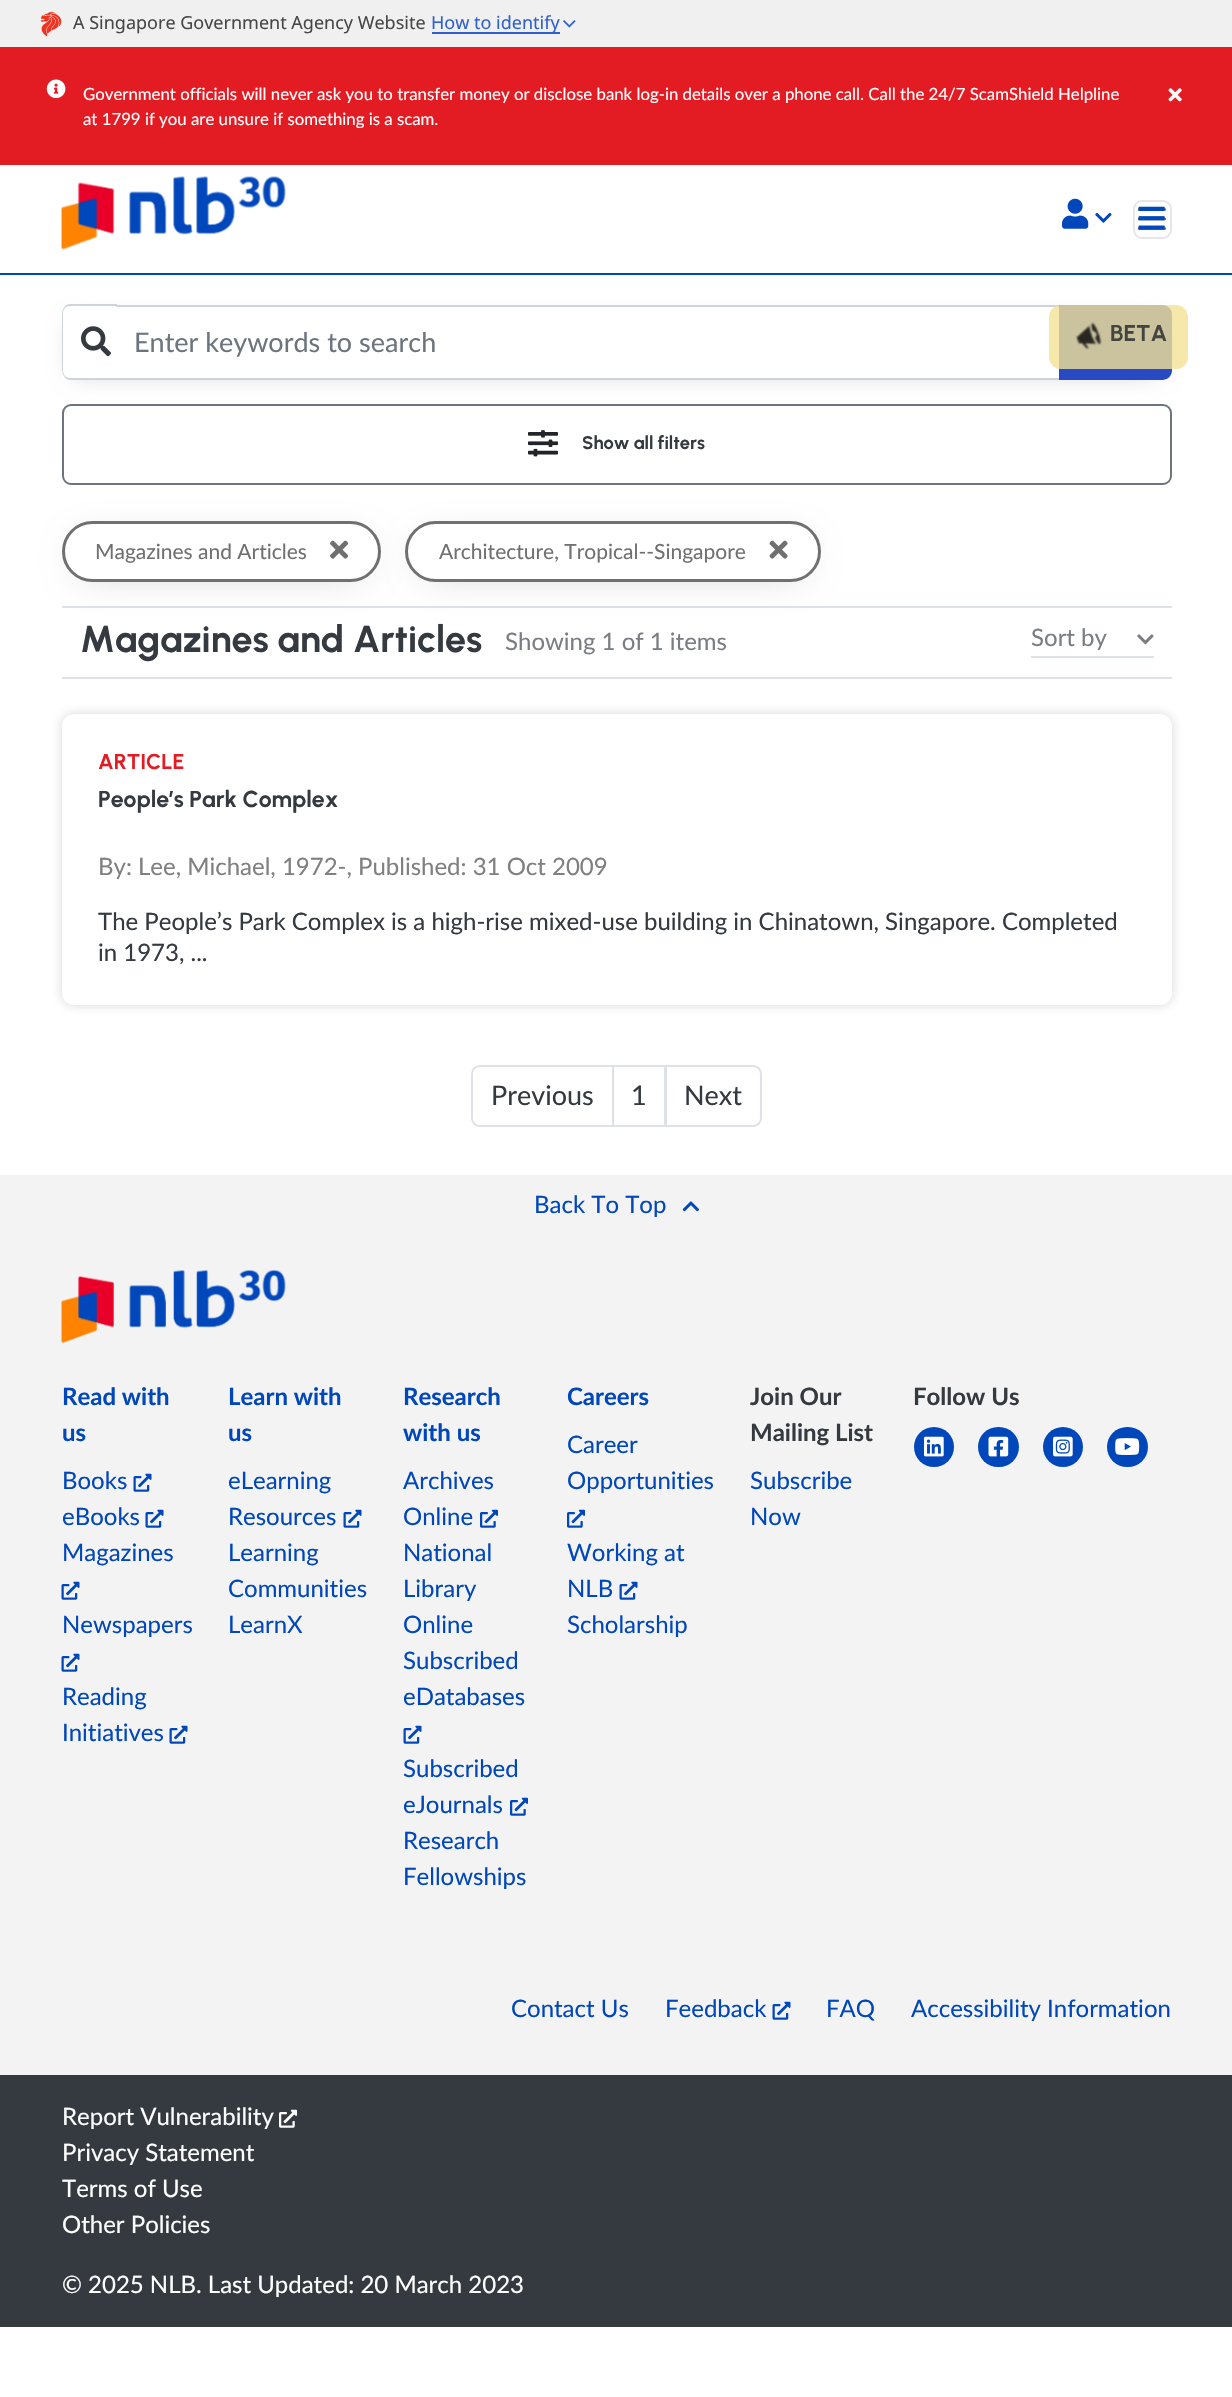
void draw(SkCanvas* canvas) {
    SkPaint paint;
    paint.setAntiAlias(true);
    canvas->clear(0xFFFFFFFF);
    paint.setColor(0xFF0047BB);
    canvas->drawRect(SkRect::MakeXYWH(0, 273, 1232, 2), paint);
    paint.setColor(0xFFF0F0F0);
    canvas->drawRect(SkRect::MakeXYWH(0, 0, 1232, 47), paint);
    canvas->drawImageRect(SkImages::DeferredFromEncodedData(SkData::MakeFromFileName("img1.png")), SkRect::MakeXYWH(41, 12, 21, 25), SkSamplingOptions());
    SkFont font1(fontMgr->matchFamilyStyle("Noto Sans", SkFontStyle::Normal()), 18);
    font1.setSubpixel(true);
    paint.setColor(0xFF474747);
    canvas->drawString("A Singapore Government Agency Website", 73, 29, font1, paint);
    paint.setColor(0xFF2F60CE);
    canvas->drawRect(SkRect::MakeXYWH(432, 32, 128, 2), paint);
    canvas->drawString("How to identify", 431, 29, font1, paint);
    canvas->drawImageRect(SkImages::DeferredFromEncodedData(SkData::MakeFromFileName("img2.png")), SkRect::MakeXYWH(563, 20, 13, 8), SkSamplingOptions());
    paint.setColor(0xFFE31B23);
    canvas->drawRect(SkRect::MakeXYWH(0, 47, 1232, 118), paint);
    canvas->drawImageRect(SkImages::DeferredFromEncodedData(SkData::MakeFromFileName("img3.png")), SkRect::MakeXYWH(46, 79, 20, 20), SkSamplingOptions());
    SkFont font2(fontMgr->matchFamilyStyle("Lato", SkFontStyle::Normal()), 16.8f);
    font2.setSubpixel(true);
    paint.setColor(0xFFFFFFFF);
    canvas->drawString("Government officials will never ask you to transfer money or disclose bank log-in details over a phone call. Call the 24/7 ScamShield Helpline", 83, 100, font2, paint);
    canvas->drawString("at 1799 if you are unsure if something is a scam.", 83, 125, font2, paint);
    canvas->drawImageRect(SkImages::DeferredFromEncodedData(SkData::MakeFromFileName("img4.png")), SkRect::MakeXYWH(1168, 88, 14, 14), SkSamplingOptions());
    canvas->drawImageRect(SkImages::DeferredFromEncodedData(SkData::MakeFromFileName("img5.png")), SkRect::MakeXYWH(61, 176, 225, 74), SkSamplingOptions());
    canvas->drawImageRect(SkImages::DeferredFromEncodedData(SkData::MakeFromFileName("img6.png")), SkRect::MakeXYWH(1062, 198, 27, 31), SkSamplingOptions());
    canvas->drawImageRect(SkImages::DeferredFromEncodedData(SkData::MakeFromFileName("img7.png")), SkRect::MakeXYWH(1095, 212, 17, 11), SkSamplingOptions());
    paint.setStyle(SkPaint::kStroke_Style);
    paint.setStrokeWidth(2);
    paint.setColor(0xFFE6E6E6);
    canvas->drawRoundRect(SkRect::MakeXYWH(1134, 201, 37, 37), 8, 8, paint);
    paint.setStrokeWidth(2.4f);
    paint.setStrokeCap(SkPaint::kRound_Cap);
    paint.setColor(0xFF737373);
    canvas->drawPath(SkPathBuilder().moveTo(1139, 209.5f).lineTo(1165, 209.5f).moveTo(1139, 219).lineTo(1165, 219).moveTo(1139, 228.5f).lineTo(1165, 228.5f).detach(), paint);
    canvas->drawImageRect(SkImages::DeferredFromEncodedData(SkData::MakeFromFileName("img8.png")), SkRect::MakeXYWH(1138, 206, 27, 24), SkSamplingOptions());
    canvas->save();
    canvas->clipPath(SkPathBuilder(SkPathFillType::kEvenOdd).moveTo(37, 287).lineTo(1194, 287).lineTo(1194, 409).lineTo(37, 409).close().moveTo(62, 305).lineTo(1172, 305).lineTo(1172, 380).lineTo(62, 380).close().detach(), true);
    paint.setStyle(SkPaint::kFill_Style);
    paint.setColor(0x3D000000);
    paint.setMaskFilter(SkMaskFilter::MakeBlur(kNormal_SkBlurStyle, 12));
    canvas->drawRect(SkRect::MakeXYWH(74, 324, 1083, 48), paint);
    paint.setMaskFilter(nullptr);
    canvas->restore();
    paint.setColor(0xFFFFFFFF);
    canvas->drawPath(SkPathBuilder().moveTo(71, 305).lineTo(117, 305).lineTo(117, 380).lineTo(71, 380).cubicTo(66, 380, 62, 376, 62, 371).lineTo(62, 314).cubicTo(62, 309, 66, 305, 71, 305).close().detach(), paint);
    paint.setColor(0xFFCED4DA);
    canvas->drawPath(SkPathBuilder(SkPathFillType::kEvenOdd).moveTo(70, 304).lineTo(117, 304).lineTo(117, 380).lineTo(70, 380).cubicTo(66, 380, 62, 375, 62, 370).lineTo(62, 314).cubicTo(62, 309, 66, 304, 70, 304).close().moveTo(70, 306).lineTo(117, 306).lineTo(117, 378).lineTo(70, 378).cubicTo(66, 378, 63, 375, 63, 370).lineTo(63, 314).cubicTo(63, 309, 66, 306, 70, 306).close().detach(), paint);
    canvas->drawImageRect(SkImages::DeferredFromEncodedData(SkData::MakeFromFileName("img9.png")), SkRect::MakeXYWH(81, 326, 30, 31), SkSamplingOptions());
    canvas->drawRect(SkRect::MakeXYWH(116, 305, 945, 2), paint);
    canvas->drawRect(SkRect::MakeXYWH(116, 378, 945, 2), paint);
    SkFont font3(fontMgr->matchFamilyStyle("Lato", SkFontStyle::Normal()), 27);
    font3.setSubpixel(true);
    paint.setColor(0xFF6C757D);
    canvas->drawString("Enter keywords to search", 134, 352, font3, paint);
    paint.setColor(0xFF284BC3);
    canvas->drawPath(SkPathBuilder().moveTo(1060.5f, 306.5f).lineTo(1163, 306.5f).cubicTo(1167, 306.5f, 1170.5f, 310, 1170.5f, 314).lineTo(1170.5f, 371).cubicTo(1170.5f, 375, 1167, 378.5f, 1163, 378.5f).lineTo(1060.5f, 378.5f).close().detach(), paint);
    paint.setStyle(SkPaint::kStroke_Style);
    paint.setStrokeWidth(3);
    paint.setStrokeCap(SkPaint::kButt_Cap);
    canvas->drawPath(SkPathBuilder().moveTo(1060.5f, 306.5f).lineTo(1163, 306.5f).cubicTo(1167, 306.5f, 1170.5f, 310, 1170.5f, 314).lineTo(1170.5f, 371).cubicTo(1170.5f, 375, 1167, 378.5f, 1163, 378.5f).lineTo(1060.5f, 378.5f).close().detach(), paint);
    paint.setStrokeWidth(2);
    paint.setColor(0xFF6C757D);
    canvas->drawRoundRect(SkRect::MakeXYWH(63, 405, 1108, 79), 8, 8, paint);
    canvas->drawImageRect(SkImages::DeferredFromEncodedData(SkData::MakeFromFileName("img10.png")), SkRect::MakeXYWH(528, 430, 30, 27), SkSamplingOptions());
    SkFont font4(fontMgr->matchFamilyStyle("Urbanist", SkFontStyle::Bold()), 18.25f);
    font4.setSubpixel(true);
    paint.setStyle(SkPaint::kFill_Style);
    paint.setColor(0xFF343A40);
    canvas->drawString("Show all filters", 582, 449, font4, paint);
    paint.setColor(0xFFDEE2E6);
    canvas->drawRect(SkRect::MakeXYWH(62, 606, 1110, 2), paint);
    paint.setColor(0x47000000);
    paint.setMaskFilter(SkMaskFilter::MakeBlur(kNormal_SkBlurStyle, 19));
    canvas->drawRoundRect(SkRect::MakeXYWH(81, 546, 281, 23), 11.5f, 11.5f, paint);
    paint.setMaskFilter(nullptr);
    paint.setColor(0xFFFFFFFF);
    canvas->drawRoundRect(SkRect::MakeXYWH(63.5f, 522.5f, 316, 58), 29, 29, paint);
    paint.setStyle(SkPaint::kStroke_Style);
    paint.setStrokeWidth(3);
    paint.setColor(0xFF707070);
    canvas->drawRoundRect(SkRect::MakeXYWH(63.5f, 522.5f, 316, 58), 29, 29, paint);
    SkFont font5(fontMgr->matchFamilyStyle("Lato", SkFontStyle::Normal()), 21);
    font5.setSubpixel(true);
    paint.setStyle(SkPaint::kFill_Style);
    canvas->drawString("Magazines and Articles", 95, 559, font5, paint);
    canvas->drawImageRect(SkImages::DeferredFromEncodedData(SkData::MakeFromFileName("img11.png")), SkRect::MakeXYWH(330, 540, 19, 19), SkSamplingOptions());
    paint.setColor(0x47000000);
    paint.setMaskFilter(SkMaskFilter::MakeBlur(kNormal_SkBlurStyle, 19));
    canvas->drawRoundRect(SkRect::MakeXYWH(425, 546, 376, 23), 11.5f, 11.5f, paint);
    paint.setMaskFilter(nullptr);
    paint.setColor(0xFFFFFFFF);
    canvas->drawRoundRect(SkRect::MakeXYWH(406.5f, 522.5f, 413, 58), 29, 29, paint);
    paint.setStyle(SkPaint::kStroke_Style);
    paint.setColor(0xFF707070);
    canvas->drawRoundRect(SkRect::MakeXYWH(406.5f, 522.5f, 413, 58), 29, 29, paint);
    paint.setStyle(SkPaint::kFill_Style);
    canvas->drawString("Architecture, Tropical--Singapore", 439, 559, font5, paint);
    canvas->drawImageRect(SkImages::DeferredFromEncodedData(SkData::MakeFromFileName("img12.png")), SkRect::MakeXYWH(769, 540, 19, 19), SkSamplingOptions());
    paint.setColor(0xFFDEE2E6);
    canvas->drawRect(SkRect::MakeXYWH(62, 677, 1110, 2), paint);
    SkFont font6(fontMgr->matchFamilyStyle("Urbanist", SkFontStyle::Bold()), 37.4f);
    font6.setSubpixel(true);
    paint.setColor(0xFF343A40);
    canvas->drawString("Magazines and Articles", 80, 652, font6, paint);
    SkFont font7(fontMgr->matchFamilyStyle("Lato", SkFontStyle::Normal()), 24);
    font7.setSubpixel(true);
    paint.setColor(0xFF7A7E83);
    canvas->drawString("Showing 1 of 1 items", 505, 650, font7, paint);
    paint.setColor(0xFFDEE2E6);
    canvas->drawRect(SkRect::MakeXYWH(1031, 656, 123, 2), paint);
    paint.setColor(0xFF7A7E83);
    canvas->drawString("Sort by", 1031, 646, font7, paint);
    canvas->drawImageRect(SkImages::DeferredFromEncodedData(SkData::MakeFromFileName("img13.png")), SkRect::MakeXYWH(1137, 634, 17, 11), SkSamplingOptions());
    canvas->save();
    canvas->clipPath(SkPathBuilder(SkPathFillType::kEvenOdd).moveTo(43, 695).lineTo(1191, 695).lineTo(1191, 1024).lineTo(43, 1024).close().moveTo(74, 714).lineTo(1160, 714).cubicTo(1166.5f, 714, 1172, 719.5f, 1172, 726).lineTo(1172, 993).cubicTo(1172, 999.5f, 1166.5f, 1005, 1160, 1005).lineTo(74, 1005).cubicTo(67.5f, 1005, 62, 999.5f, 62, 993).lineTo(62, 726).cubicTo(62, 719.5f, 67.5f, 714, 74, 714).close().detach(), true);
    paint.setColor(0x290A0A0A);
    paint.setMaskFilter(SkMaskFilter::MakeBlur(kNormal_SkBlurStyle, 6));
    canvas->drawRoundRect(SkRect::MakeXYWH(62, 714, 1110, 291), 12, 12, paint);
    paint.setMaskFilter(nullptr);
    canvas->restore();
    SkFont font8(fontMgr->matchFamilyStyle("Urbanist", SkFontStyle::Bold()), 21.5f);
    font8.setSubpixel(true);
    paint.setColor(0xFFE31B23);
    canvas->drawString("ARTICLE", 98, 769, font8, paint);
    SkFont font9(fontMgr->matchFamilyStyle("Urbanist", SkFontStyle::Bold()), 23);
    font9.setSubpixel(true);
    paint.setColor(0xFF343A40);
    canvas->drawString("People’s Park Complex", 98, 807, font9, paint);
    paint.setColor(0xFF808080);
    canvas->drawString("By: Lee, Michael, 1972-, Published: 31 Oct 2009", 98, 875, font7, paint);
    paint.setColor(0xFF343A40);
    canvas->drawString("The People’s Park Complex is a high-rise mixed-use building in Chinatown, Singapore. Completed", 98, 930, font7, paint);
    canvas->drawString("in 1973, ...", 98, 961, font7, paint);
    paint.setStyle(SkPaint::kStroke_Style);
    paint.setStrokeWidth(2);
    paint.setColor(0xFFDEE2E6);
    canvas->drawPath(SkPathBuilder().moveTo(480, 1066).lineTo(613, 1066).lineTo(613, 1126).lineTo(480, 1126).cubicTo(475.5f, 1126, 472, 1122.5f, 472, 1118).lineTo(472, 1074).cubicTo(472, 1069.5f, 475.5f, 1066, 480, 1066).close().detach(), paint);
    paint.setStyle(SkPaint::kFill_Style);
    paint.setColor(0xFF343A40);
    canvas->drawString("Previous", 491, 1105, font3, paint);
    paint.setStyle(SkPaint::kStroke_Style);
    paint.setColor(0xFFDEE2E6);
    canvas->drawRect(SkRect::MakeXYWH(613, 1066, 52, 60), paint);
    paint.setStyle(SkPaint::kFill_Style);
    paint.setColor(0xFF343A40);
    canvas->drawString("1", 631, 1105, font3, paint);
    paint.setColor(0xFFFFFFFF);
    canvas->drawPath(SkPathBuilder().moveTo(666, 1066).lineTo(753, 1066).cubicTo(757.5f, 1066, 761, 1069.5f, 761, 1074).lineTo(761, 1118).cubicTo(761, 1122.5f, 757.5f, 1126, 753, 1126).lineTo(666, 1126).close().detach(), paint);
    paint.setStyle(SkPaint::kStroke_Style);
    paint.setColor(0xFFDEE2E6);
    canvas->drawPath(SkPathBuilder().moveTo(666, 1066).lineTo(753, 1066).cubicTo(757.5f, 1066, 761, 1069.5f, 761, 1074).lineTo(761, 1118).cubicTo(761, 1122.5f, 757.5f, 1126, 753, 1126).lineTo(666, 1126).close().detach(), paint);
    paint.setStyle(SkPaint::kFill_Style);
    paint.setColor(0xFF343A40);
    canvas->drawString("Next", 684, 1105, font3, paint);
    paint.setColor(0xCCF4E195);
    canvas->drawRoundRect(SkRect::MakeXYWH(1049, 305, 139, 64), 12, 12, paint);
    canvas->drawImageRect(SkImages::DeferredFromEncodedData(SkData::MakeFromFileName("img14.png")), SkRect::MakeXYWH(1075, 322, 27, 28), SkSamplingOptions());
    paint.setColor(0xFF444541);
    canvas->drawString("BETA", 1110, 341, font9, paint);
    paint.setColor(0xFFF3F3F3);
    canvas->drawRect(SkRect::MakeXYWH(0, 1175, 1232, 900), paint);
    paint.setColor(0xFF0047BB);
    canvas->drawString("Back To Top", 534, 1213, font7, paint);
    canvas->drawImageRect(SkImages::DeferredFromEncodedData(SkData::MakeFromFileName("img15.png")), SkRect::MakeXYWH(682, 1201, 17, 11), SkSamplingOptions());
    canvas->drawImageRect(SkImages::DeferredFromEncodedData(SkData::MakeFromFileName("img16.png")), SkRect::MakeXYWH(61, 1270, 225, 73), SkSamplingOptions());
    SkFont font10(fontMgr->matchFamilyStyle("Lato", SkFontStyle::Bold()), 24);
    font10.setSubpixel(true);
    canvas->drawString("Read with", 62, 1405, font10, paint);
    canvas->drawString("us", 62, 1441, font10, paint);
    canvas->drawString("Books", 62, 1489, font7, paint);
    canvas->drawImageRect(SkImages::DeferredFromEncodedData(SkData::MakeFromFileName("img17.png")), SkRect::MakeXYWH(133, 1473, 19, 19), SkSamplingOptions());
    canvas->drawString("eBooks", 62, 1525, font7, paint);
    canvas->drawImageRect(SkImages::DeferredFromEncodedData(SkData::MakeFromFileName("img17.png")), SkRect::MakeXYWH(145, 1509, 19, 19), SkSamplingOptions());
    canvas->drawString("Magazines", 62, 1561, font7, paint);
    canvas->drawImageRect(SkImages::DeferredFromEncodedData(SkData::MakeFromFileName("img17.png")), SkRect::MakeXYWH(61, 1581, 19, 19), SkSamplingOptions());
    canvas->drawString("Newspapers", 62, 1633, font7, paint);
    canvas->drawImageRect(SkImages::DeferredFromEncodedData(SkData::MakeFromFileName("img17.png")), SkRect::MakeXYWH(61, 1653, 19, 19), SkSamplingOptions());
    canvas->drawString("Reading", 62, 1705, font7, paint);
    canvas->drawString("Initiatives", 62, 1741, font7, paint);
    canvas->drawImageRect(SkImages::DeferredFromEncodedData(SkData::MakeFromFileName("img17.png")), SkRect::MakeXYWH(169, 1725, 19, 19), SkSamplingOptions());
    canvas->drawString("Learn with", 228, 1405, font10, paint);
    canvas->drawString("us", 228, 1441, font10, paint);
    canvas->drawString("eLearning", 228, 1489, font7, paint);
    canvas->drawString("Resources", 228, 1525, font7, paint);
    canvas->drawImageRect(SkImages::DeferredFromEncodedData(SkData::MakeFromFileName("img17.png")), SkRect::MakeXYWH(343, 1509, 19, 19), SkSamplingOptions());
    canvas->drawString("Learning", 228, 1561, font7, paint);
    canvas->drawString("Communities", 228, 1597, font7, paint);
    canvas->drawString("LearnX", 228, 1633, font7, paint);
    canvas->drawString("Research", 403, 1405, font10, paint);
    canvas->drawString("with us", 403, 1441, font10, paint);
    canvas->drawString("Archives", 403, 1489, font7, paint);
    canvas->drawString("Online", 403, 1525, font7, paint);
    canvas->drawImageRect(SkImages::DeferredFromEncodedData(SkData::MakeFromFileName("img18.png")), SkRect::MakeXYWH(480, 1509, 18, 19), SkSamplingOptions());
    canvas->drawString("National", 403, 1561, font7, paint);
    canvas->drawString("Library", 403, 1597, font7, paint);
    canvas->drawString("Online", 403, 1633, font7, paint);
    canvas->drawString("Subscribed", 403, 1669, font7, paint);
    canvas->drawString("eDatabases", 403, 1705, font7, paint);
    canvas->drawImageRect(SkImages::DeferredFromEncodedData(SkData::MakeFromFileName("img17.png")), SkRect::MakeXYWH(403, 1725, 19, 19), SkSamplingOptions());
    canvas->drawString("Subscribed", 403, 1777, font7, paint);
    canvas->drawString("eJournals", 403, 1813, font7, paint);
    canvas->drawImageRect(SkImages::DeferredFromEncodedData(SkData::MakeFromFileName("img18.png")), SkRect::MakeXYWH(510, 1797, 18, 19), SkSamplingOptions());
    canvas->drawString("Research", 403, 1849, font7, paint);
    canvas->drawString("Fellowships", 403, 1885, font7, paint);
    canvas->drawString("Careers", 567, 1405, font10, paint);
    canvas->drawString("Career", 567, 1453, font7, paint);
    canvas->drawString("Opportunities", 567, 1489, font7, paint);
    canvas->drawImageRect(SkImages::DeferredFromEncodedData(SkData::MakeFromFileName("img18.png")), SkRect::MakeXYWH(567, 1509, 18, 19), SkSamplingOptions());
    canvas->drawString("Working at", 567, 1561, font7, paint);
    canvas->drawString("NLB", 567, 1597, font7, paint);
    canvas->drawImageRect(SkImages::DeferredFromEncodedData(SkData::MakeFromFileName("img17.png")), SkRect::MakeXYWH(619, 1581, 19, 19), SkSamplingOptions());
    canvas->drawString("Scholarship", 567, 1633, font7, paint);
    paint.setColor(0xFF343A40);
    canvas->drawString("Join Our", 750, 1405, font10, paint);
    canvas->drawString("Mailing List", 750, 1441, font10, paint);
    paint.setColor(0xFF0047BB);
    canvas->drawString("Subscribe", 750, 1489, font7, paint);
    canvas->drawString("Now", 750, 1525, font7, paint);
    paint.setColor(0xFF343A40);
    canvas->drawString("Follow Us", 913, 1405, font10, paint);
    paint.setColor(0xFF0047BB);
    canvas->drawCircle(934, 1447, 20, paint);
    canvas->drawImageRect(SkImages::DeferredFromEncodedData(SkData::MakeFromFileName("img19.png")), SkRect::MakeXYWH(924, 1436, 20, 21), SkSamplingOptions());
    canvas->drawRoundRect(SkRect::MakeXYWH(978, 1427, 41, 40), 20, 20, paint);
    canvas->drawImageRect(SkImages::DeferredFromEncodedData(SkData::MakeFromFileName("img20.png")), SkRect::MakeXYWH(988, 1436, 21, 21), SkSamplingOptions());
    canvas->drawCircle(1063, 1447, 20, paint);
    canvas->drawImageRect(SkImages::DeferredFromEncodedData(SkData::MakeFromFileName("img21.png")), SkRect::MakeXYWH(1053, 1436, 20, 21), SkSamplingOptions());
    canvas->drawRoundRect(SkRect::MakeXYWH(1107, 1427, 41, 40), 20, 20, paint);
    canvas->drawImageRect(SkImages::DeferredFromEncodedData(SkData::MakeFromFileName("img22.png")), SkRect::MakeXYWH(1115, 1438, 25, 17), SkSamplingOptions());
    canvas->drawString("Contact Us", 511, 2017, font7, paint);
    canvas->drawString("Feedback", 665, 2017, font7, paint);
    canvas->drawImageRect(SkImages::DeferredFromEncodedData(SkData::MakeFromFileName("img17.png")), SkRect::MakeXYWH(772, 2001, 19, 19), SkSamplingOptions());
    canvas->drawString("FAQ", 826, 2017, font7, paint);
    canvas->drawString("Accessibility Information", 911, 2017, font7, paint);
    paint.setColor(0xFF343A40);
    canvas->drawRect(SkRect::MakeXYWH(0, 2075, 1232, 252), paint);
    paint.setColor(0xFFFFFFFF);
    canvas->drawString("Report Vulnerability", 62, 2125, font7, paint);
    canvas->drawImageRect(SkImages::DeferredFromEncodedData(SkData::MakeFromFileName("img23.png")), SkRect::MakeXYWH(279, 2109, 18, 19), SkSamplingOptions());
    canvas->drawString("Privacy Statement", 62, 2161, font7, paint);
    canvas->drawString("Terms of Use", 62, 2197, font7, paint);
    canvas->drawString("Other Policies", 62, 2233, font7, paint);
    canvas->drawString("© 2025 NLB. Last Updated: 20 March 2023", 62, 2293, font7, paint);
}
